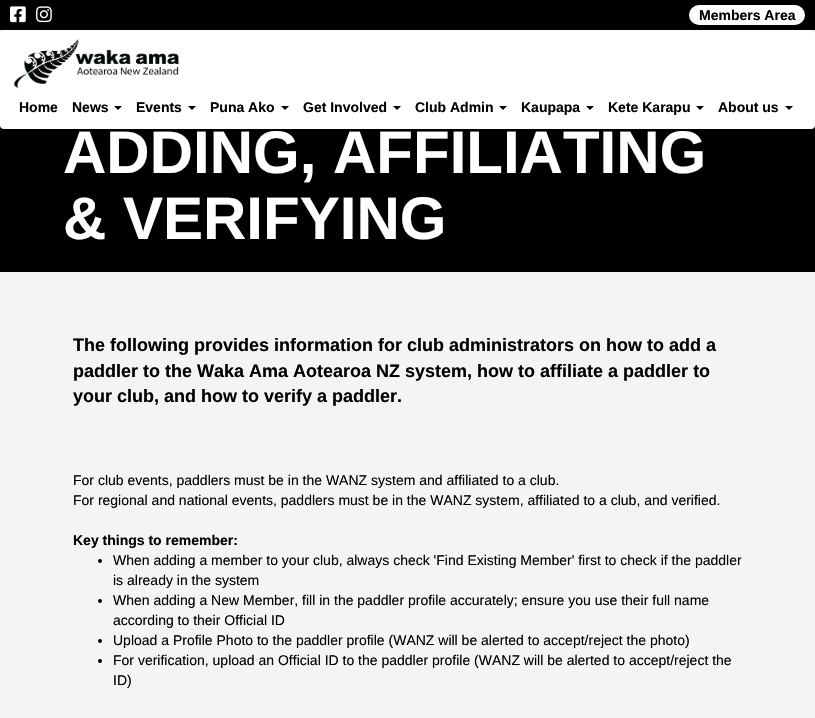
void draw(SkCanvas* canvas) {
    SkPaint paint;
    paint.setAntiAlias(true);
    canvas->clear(0xFFF4F4F4);
    paint.setColor(0xFF000000);
    canvas->drawRect(SkRect::MakeXYWH(0, 0, 815, 30), paint);
    canvas->drawImageRect(SkImages::DeferredFromEncodedData(SkData::MakeFromFileName("img1.png")), SkRect::MakeXYWH(10, 6, 16, 17), SkSamplingOptions());
    canvas->drawImageRect(SkImages::DeferredFromEncodedData(SkData::MakeFromFileName("img2.png")), SkRect::MakeXYWH(36, 6, 16, 17), SkSamplingOptions());
    paint.setColor(0xFFFFFFFF);
    canvas->drawRoundRect(SkRect::MakeXYWH(689, 5, 116, 20), 10, 10, paint);
    SkFont font1(fontMgr->matchFamilyStyle("Liberation Sans", SkFontStyle::Bold()), 14);
    font1.setSubpixel(true);
    paint.setColor(0xFF000000);
    canvas->drawString("Members Area", 699, 20, font1, paint);
    canvas->drawRect(SkRect::MakeXYWH(0, 125, 815, 147), paint);
    paint.setColor(0x29000000);
    paint.setMaskFilter(SkMaskFilter::MakeBlur(kNormal_SkBlurStyle, 3.5f));
    canvas->drawRoundRect(SkRect::MakeXYWH(0, 31, 815, 99), 4, 4, paint);
    paint.setMaskFilter(nullptr);
    paint.setColor(0xFFFFFFFF);
    canvas->drawRoundRect(SkRect::MakeXYWH(0, 30, 815, 99), 4, 4, paint);
    canvas->drawImageRect(SkImages::DeferredFromEncodedData(SkData::MakeFromFileName("img3.png")), SkRect::MakeXYWH(14, 39, 166, 50), SkSamplingOptions());
    paint.setColor(0xFF000000);
    canvas->drawString("Home", 19, 112, font1, paint);
    canvas->drawString("News", 72, 112, font1, paint);
    canvas->drawPath(SkPathBuilder().moveTo(114, 106).lineTo(122, 106).lineTo(118, 110).close().detach(), paint);
    canvas->drawString("Events", 136, 112, font1, paint);
    canvas->drawPath(SkPathBuilder().moveTo(188, 106).lineTo(196, 106).lineTo(192, 110).close().detach(), paint);
    canvas->drawString("Puna Ako", 210, 112, font1, paint);
    canvas->drawPath(SkPathBuilder().moveTo(281, 106).lineTo(289, 106).lineTo(285, 110).close().detach(), paint);
    canvas->drawString("Get Involved", 303, 112, font1, paint);
    canvas->drawPath(SkPathBuilder().moveTo(393, 106).lineTo(401, 106).lineTo(397, 110).close().detach(), paint);
    canvas->drawString("Club Admin", 415, 112, font1, paint);
    canvas->drawPath(SkPathBuilder().moveTo(499, 106).lineTo(507, 106).lineTo(503, 110).close().detach(), paint);
    canvas->drawString("Kaupapa", 521, 112, font1, paint);
    canvas->drawPath(SkPathBuilder().moveTo(586, 106).lineTo(594, 106).lineTo(590, 110).close().detach(), paint);
    canvas->drawString("Kete Karapu", 608, 112, font1, paint);
    canvas->drawPath(SkPathBuilder().moveTo(696, 106).lineTo(704, 106).lineTo(700, 110).close().detach(), paint);
    canvas->drawString("About us", 718, 112, font1, paint);
    canvas->drawPath(SkPathBuilder().moveTo(785, 106).lineTo(793, 106).lineTo(789, 110).close().detach(), paint);
    paint.setColor(0xFFEEEEEE);
    canvas->drawRect(SkRect::MakeXYWH(0, 272, 815, 1), paint);
    SkFont font2(fontMgr->matchFamilyStyle("Liberation Sans", SkFontStyle::Bold()), 60);
    font2.setSubpixel(true);
    paint.setColor(0xFFFFFFFF);
    canvas->drawString("ADDING, AFFILIATING", 63, 173, font2, paint);
    canvas->drawString("& VERIFYING", 63, 239, font2, paint);
    SkFont font3(fontMgr->matchFamilyStyle("Liberation Sans", SkFontStyle::Bold()), 18);
    font3.setSubpixel(true);
    paint.setColor(0xFF000000);
    canvas->drawString("The following provides information for club administrators on how to add a", 73, 351, font3, paint);
    canvas->drawString("paddler to the Waka Ama Aotearoa NZ system, how to affiliate a paddler to", 73, 377, font3, paint);
    canvas->drawString("your club, and how to verify a paddler.", 73, 402, font3, paint);
    SkFont font4(fontMgr->matchFamilyStyle("Liberation Sans", SkFontStyle::Normal()), 14);
    font4.setSubpixel(true);
    canvas->drawString("For club events, paddlers must be in the WANZ system and affiliated to a club.", 73, 485, font4, paint);
    canvas->drawString("For regional and national events, paddlers must be in the WANZ system, affiliated to a club, and verified.", 73, 505, font4, paint);
    canvas->drawString("Key things to remember:", 73, 545, font1, paint);
    canvas->drawCircle(100, 561, 2, paint);
    canvas->drawString("When adding a member to your club, always check 'Find Existing Member' first to check if the paddler", 113, 565, font4, paint);
    canvas->drawString("is already in the system", 113, 585, font4, paint);
    canvas->drawCircle(100, 601, 2, paint);
    canvas->drawString("When adding a New Member, fill in the paddler profile accurately; ensure you use their full name", 113, 605, font4, paint);
    canvas->drawString("according to their Official ID", 113, 625, font4, paint);
    canvas->drawCircle(100, 641, 2, paint);
    canvas->drawString("Upload a Profile Photo to the paddler profile (WANZ will be alerted to accept/reject the photo)", 113, 645, font4, paint);
    canvas->drawCircle(100, 661, 2, paint);
    canvas->drawString("For verification, upload an Official ID to the paddler profile (WANZ will be alerted to accept/reject the", 113, 665, font4, paint);
    canvas->drawString("ID)", 113, 685, font4, paint);
}
